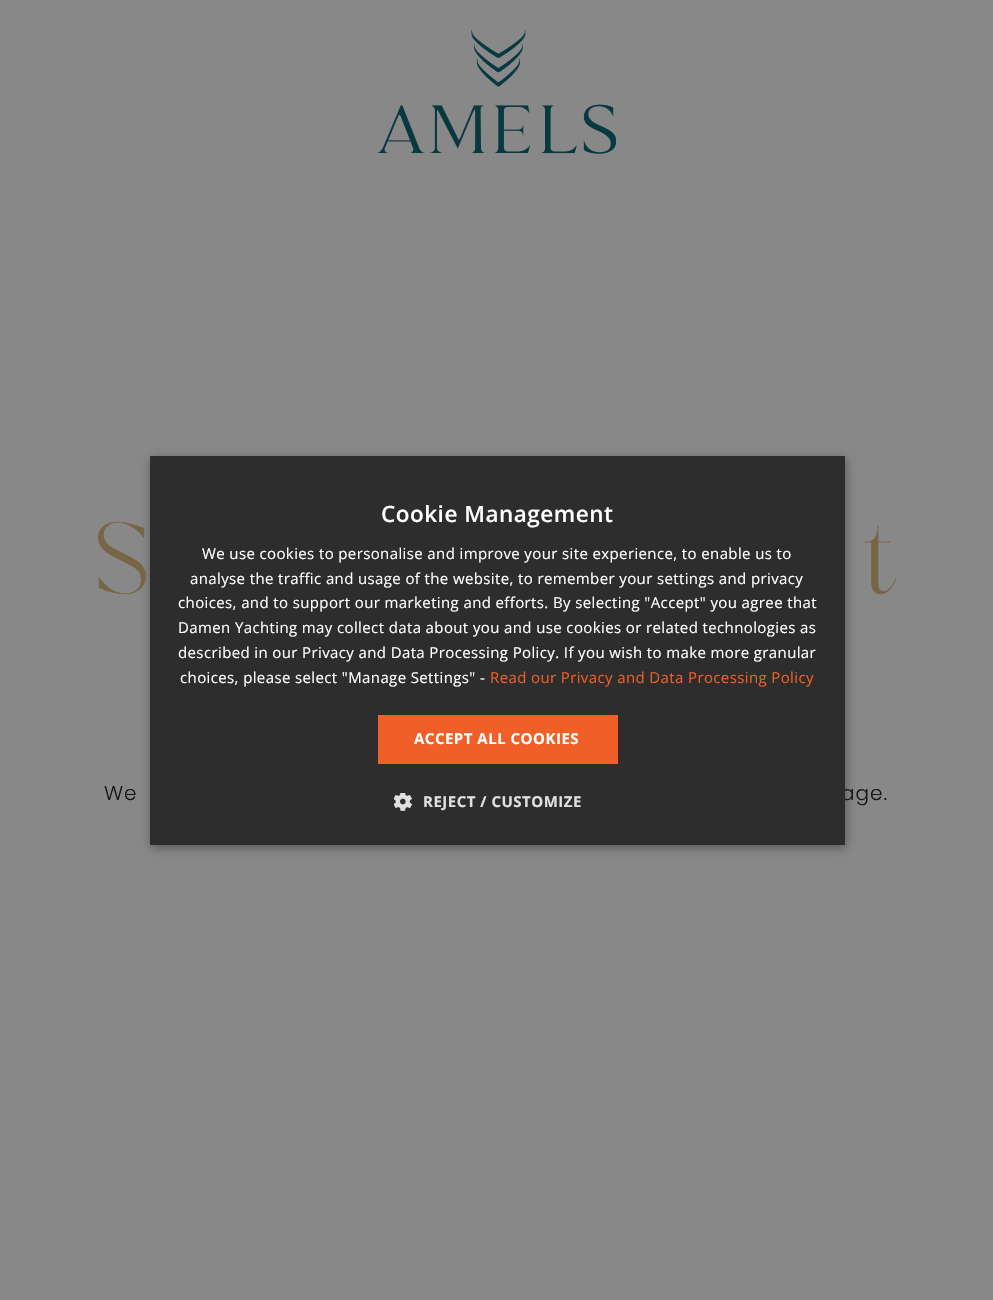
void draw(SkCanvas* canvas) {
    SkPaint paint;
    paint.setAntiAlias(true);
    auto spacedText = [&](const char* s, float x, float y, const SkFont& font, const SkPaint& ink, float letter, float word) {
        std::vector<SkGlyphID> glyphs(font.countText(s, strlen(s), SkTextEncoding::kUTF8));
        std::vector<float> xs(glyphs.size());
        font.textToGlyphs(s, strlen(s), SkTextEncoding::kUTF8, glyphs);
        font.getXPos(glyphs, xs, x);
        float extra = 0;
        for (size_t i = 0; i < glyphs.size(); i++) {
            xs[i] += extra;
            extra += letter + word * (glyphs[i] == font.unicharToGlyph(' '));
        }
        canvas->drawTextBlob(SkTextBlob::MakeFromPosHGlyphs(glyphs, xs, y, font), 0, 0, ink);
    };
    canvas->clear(0xFF888888);
    paint.setColor(0x59000000);
    paint.setMaskFilter(SkMaskFilter::MakeBlur(kNormal_SkBlurStyle, 5));
    canvas->drawRect(SkRect::MakeXYWH(151, 459, 695, 389), paint);
    paint.setMaskFilter(nullptr);
    SkFont font1(fontMgr->matchFamilyStyle("Poppins", SkFontStyle(300, SkFontStyle::kNormal_Width, SkFontStyle::kUpright_Slant)), 20);
    font1.setSubpixel(true);
    paint.setColor(0xFF151515);
    spacedText("age.", 841, 800, font1, paint, 1, 0);
    paint.setColor(0xFF2D2D2D);
    canvas->drawRect(SkRect::MakeXYWH(150, 456, 695, 389), paint);
    SkFont font2(fontMgr->matchFamilyStyle("Open Sans", SkFontStyle(600, SkFontStyle::kNormal_Width, SkFontStyle::kUpright_Slant)), 22.5f);
    font2.setSubpixel(true);
    paint.setColor(0xFFFFFFFF);
    spacedText("Cookie Management", 381, 522, font2, paint, 0.5f, 0);
    SkFont font3(fontMgr->matchFamilyStyle("Open Sans", SkFontStyle::Normal()), 15);
    font3.setSubpixel(true);
    spacedText("We use cookies to personalise and improve your site experience, to enable us to", 202, 559, font3, paint, 0.38f, 0);
    spacedText("analyse the traffic and usage of the website, to remember your settings and privacy", 190, 584, font3, paint, 0.38f, 0);
    spacedText("choices, and to support our marketing and efforts. By selecting \"Accept\" you agree that", 178, 608, font3, paint, 0.38f, 0);
    spacedText("Damen Yachting may collect data about you and use cookies or related technologies as", 178, 633, font3, paint, 0.38f, 0);
    spacedText("described in our Privacy and Data Processing Policy. If you wish to make more granular", 178, 658, font3, paint, 0.38f, 0);
    spacedText("choices, please select \"Manage Settings\" -", 180, 683, font3, paint, 0.38f, 0);
    paint.setColor(0xFFF05F27);
    spacedText("Read our Privacy and Data Processing Policy", 490, 683, font3, paint, 0.38f, 0);
    canvas->drawRect(SkRect::MakeXYWH(378, 715, 240, 49), paint);
    SkFont font4(fontMgr->matchFamilyStyle("Open Sans", SkFontStyle::Bold()), 15);
    font4.setSubpixel(true);
    paint.setColor(0xFFFFFFFF);
    spacedText("ACCEPT ALL COOKIES", 414, 744, font4, paint, 0.5f, 0);
    canvas->drawImageRect(SkImages::DeferredFromEncodedData(SkData::MakeFromFileName("img1.png")), SkRect::MakeXYWH(394, 793, 19, 18), SkSamplingOptions());
    paint.setColor(0xFFE0E0E0);
    spacedText("REJECT / CUSTOMIZE", 423, 807, font4, paint, 0.5f, 0);
    canvas->drawImageRect(SkImages::DeferredFromEncodedData(SkData::MakeFromFileName("img2.png")), SkRect::MakeXYWH(378, 30, 238, 124), SkSamplingOptions());
    SkFont font5(fontMgr->matchFamilyStyle("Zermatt", SkFontStyle(300, SkFontStyle::kNormal_Width, SkFontStyle::kUpright_Slant)), 100);
    font5.setSubpixel(true);
    paint.setColor(0xFF786545);
    spacedText("S", 92, 593, font5, paint, 1, 0);
    spacedText("t", 861, 593, font5, paint, 1, 0);
    paint.setColor(0xFF151515);
    spacedText("We", 104, 800, font1, paint, 1, 0);
}
